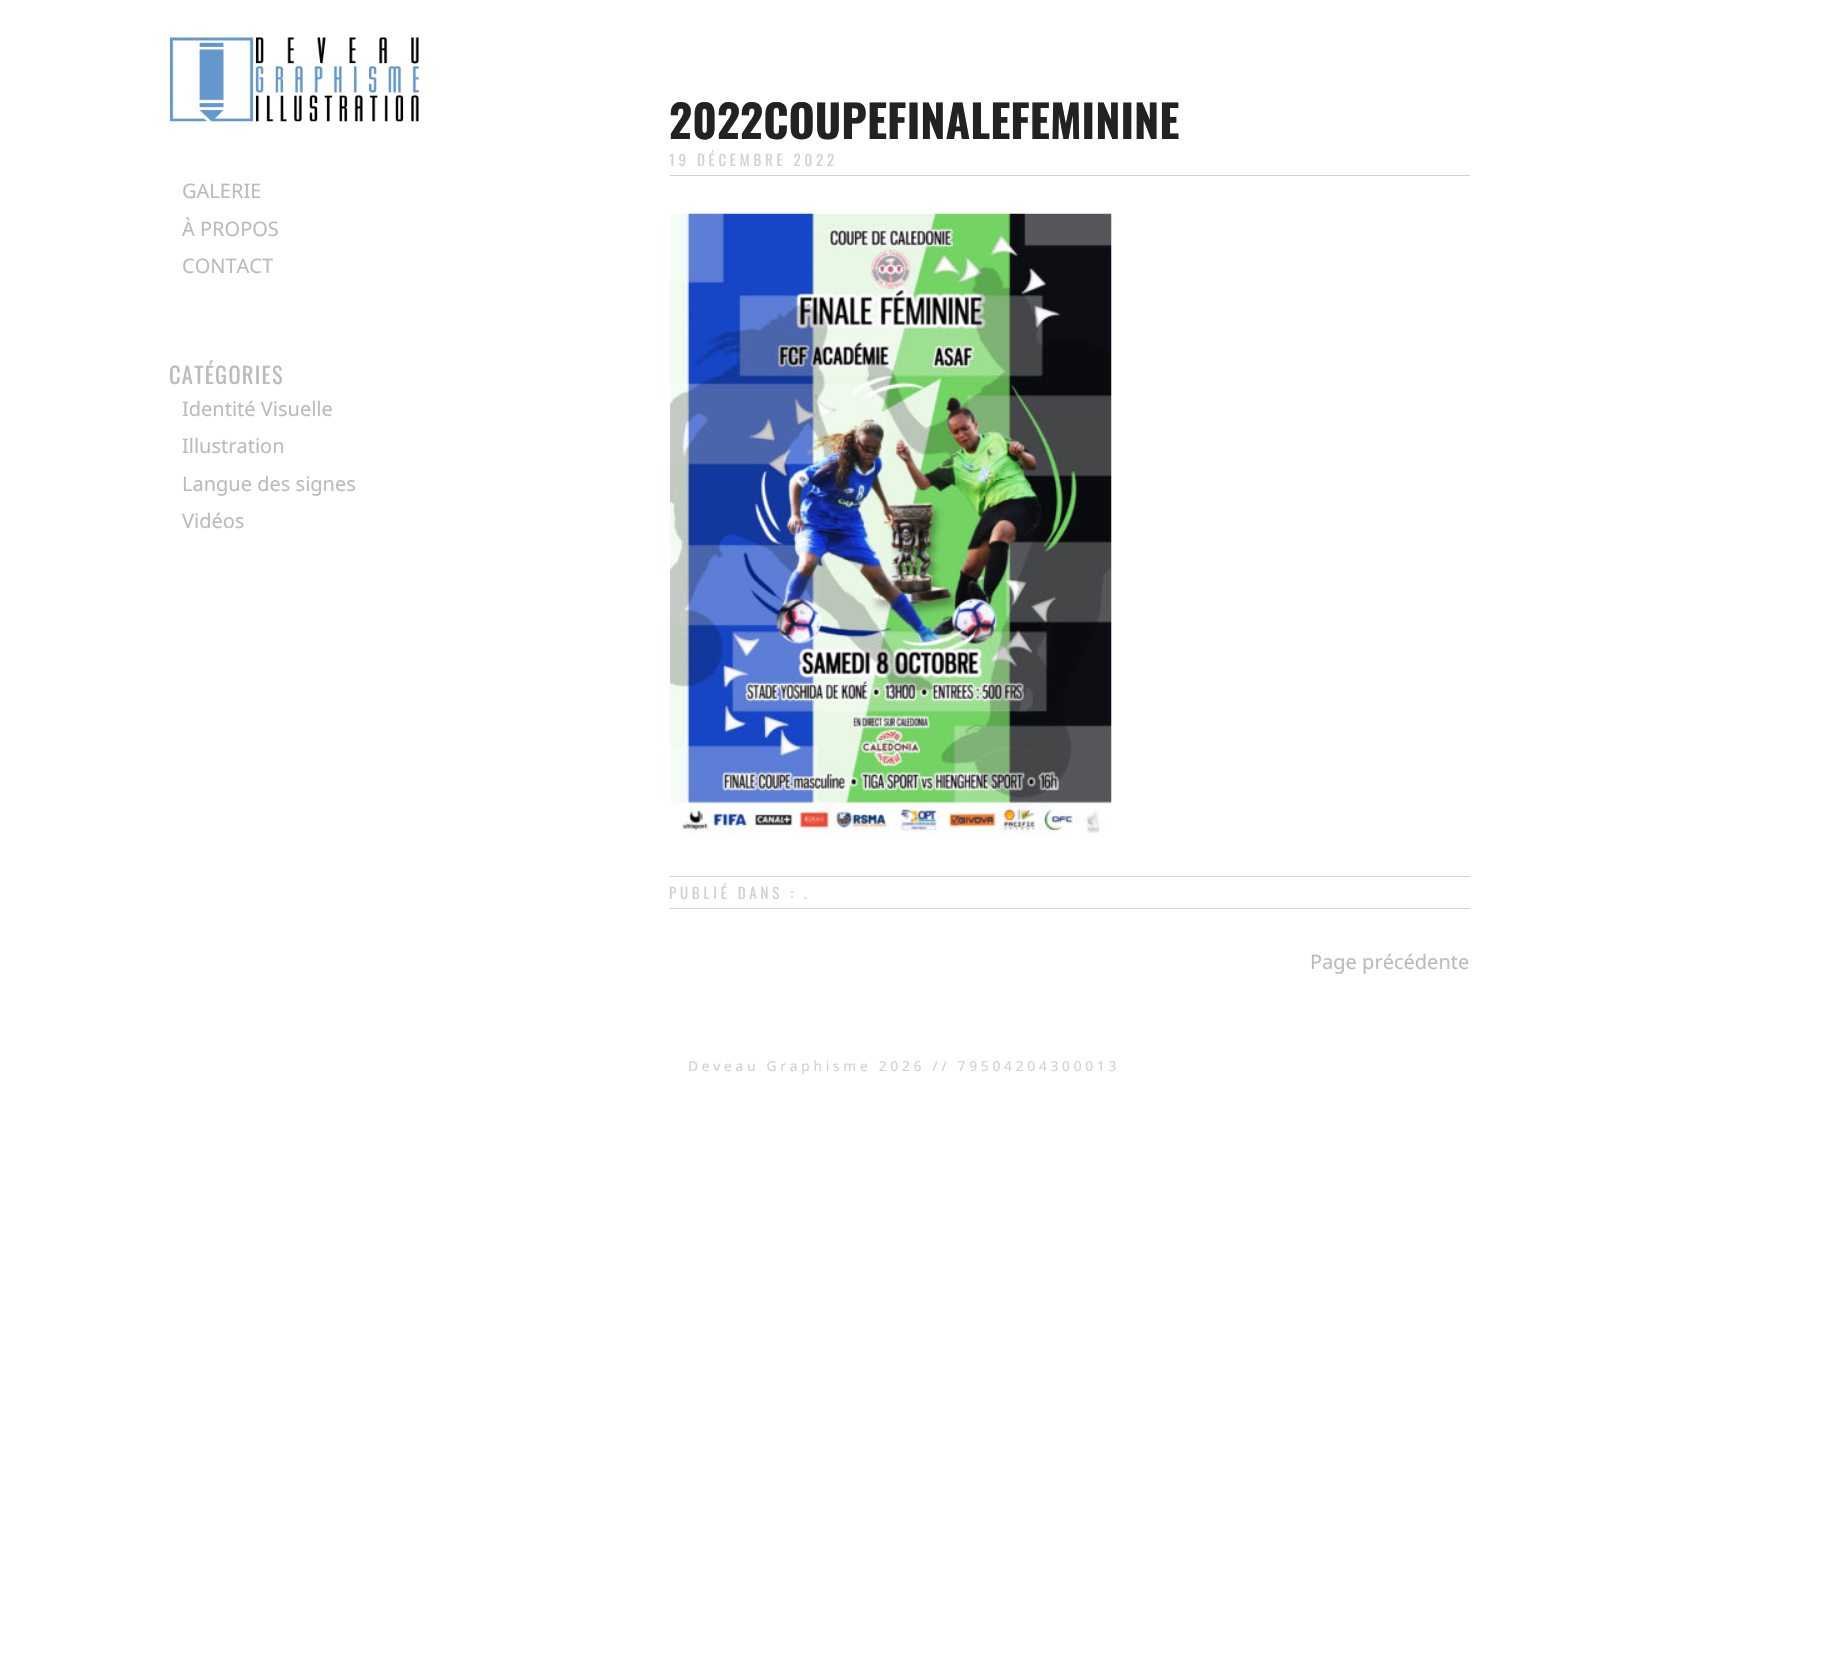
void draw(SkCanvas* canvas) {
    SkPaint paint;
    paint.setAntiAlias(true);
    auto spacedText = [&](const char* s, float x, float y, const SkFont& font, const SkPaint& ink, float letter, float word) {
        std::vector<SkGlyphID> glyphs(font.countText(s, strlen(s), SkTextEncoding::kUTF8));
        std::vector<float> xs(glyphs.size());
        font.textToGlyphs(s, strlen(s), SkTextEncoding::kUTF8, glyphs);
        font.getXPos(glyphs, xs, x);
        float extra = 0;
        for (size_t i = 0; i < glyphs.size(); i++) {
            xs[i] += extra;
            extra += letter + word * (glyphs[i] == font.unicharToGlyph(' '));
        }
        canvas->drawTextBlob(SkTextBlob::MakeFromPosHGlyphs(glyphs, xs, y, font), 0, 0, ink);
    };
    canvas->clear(0xFFFFFFFF);
    canvas->drawImageRect(SkImages::DeferredFromEncodedData(SkData::MakeFromFileName("img1.png")), SkRect::MakeXYWH(170, 37, 249, 85), SkSamplingOptions());
    SkFont font1(fontMgr->matchFamilyStyle("Noto Sans", SkFontStyle::Normal()), 20);
    font1.setSubpixel(true);
    paint.setColor(0xFFBBBBBB);
    canvas->drawString("GALERIE", 182, 198, font1, paint);
    canvas->drawString("À PROPOS", 182, 236, font1, paint);
    canvas->drawString("CONTACT", 182, 273, font1, paint);
    SkFont font2(fontMgr->matchFamilyStyle("Oswald", SkFontStyle::Normal()), 22.5f);
    font2.setSubpixel(true);
    spacedText("CATÉGORIES", 169, 384, font2, paint, 1.25f, 0);
    canvas->drawString("Identité Visuelle", 182, 416, font1, paint);
    canvas->drawString("Illustration", 182, 453, font1, paint);
    canvas->drawString("Langue des signes", 182, 491, font1, paint);
    canvas->drawString("Vidéos", 182, 528, font1, paint);
    SkFont font3(fontMgr->matchFamilyStyle("Oswald", SkFontStyle::Bold()), 45);
    font3.setSubpixel(true);
    paint.setColor(0xFF222222);
    canvas->drawString("2022COUPEFINALEFEMININE", 669, 139, font3, paint);
    paint.setColor(0xFFD2D1CF);
    canvas->drawRect(SkRect::MakeXYWH(670, 175, 800, 1), paint);
    SkFont font4(fontMgr->matchFamilyStyle("Oswald", SkFontStyle::Normal()), 15);
    font4.setSubpixel(true);
    spacedText("19 DÉCEMBRE 2022", 669, 166, font4, paint, 3.75f, 0);
    canvas->drawImageRect(SkImages::DeferredFromEncodedData(SkData::MakeFromFileName("img2.png")), SkRect::MakeXYWH(670, 213, 442, 621), SkSamplingOptions());
    canvas->drawRect(SkRect::MakeXYWH(670, 876, 800, 1), paint);
    canvas->drawRect(SkRect::MakeXYWH(670, 908, 800, 1), paint);
    spacedText("PUBLIÉ DANS : .", 669, 899, font4, paint, 3.75f, 0);
    paint.setColor(0xFFBBBBBB);
    canvas->drawString("Page précédente", 1310, 969, font1, paint);
    SkFont font5(fontMgr->matchFamilyStyle("Noto Sans", SkFontStyle::Normal()), 13.75f);
    font5.setSubpixel(true);
    paint.setColor(0xFFD2D1CF);
    spacedText("Deveau Graphisme 2026 // 79504204300013", 688, 1071, font5, paint, 3.75f, 0);
}
